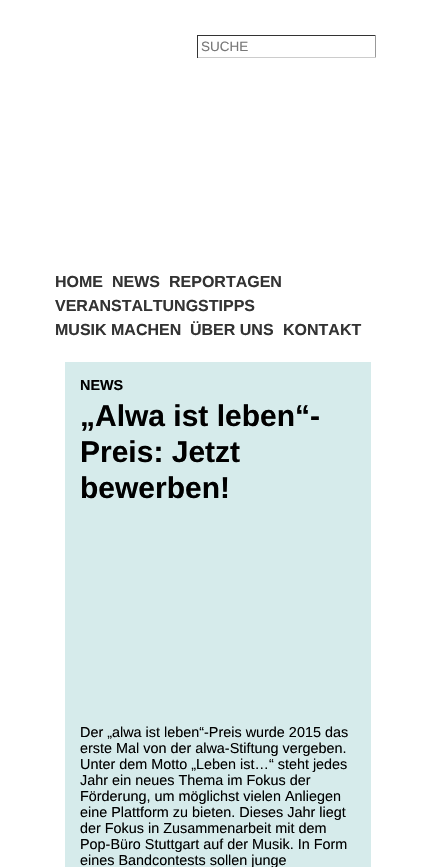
void draw(SkCanvas* canvas) {
    SkPaint paint;
    paint.setAntiAlias(true);
    canvas->clear(0xFFFFFFFF);
    paint.setColor(0xFF333333);
    canvas->drawRect(SkRect::MakeXYWH(197, 35, 179, 1), paint);
    paint.setColor(0xFF999999);
    canvas->drawRect(SkRect::MakeXYWH(375, 35, 1, 23), paint);
    paint.setColor(0xFFCCCCCC);
    canvas->drawRect(SkRect::MakeXYWH(197, 57, 179, 1), paint);
    paint.setColor(0xFF333333);
    canvas->drawRect(SkRect::MakeXYWH(197, 35, 1, 23), paint);
    SkFont font1(fontMgr->matchFamilyStyle("Liberation Sans", SkFontStyle::Normal()), 13.5f);
    font1.setSubpixel(true);
    paint.setColor(0xFF777777);
    canvas->drawString("SUCHE", 201, 51, font1, paint);
    SkFont font2(fontMgr->matchFamilyStyle("Liberation Sans", SkFontStyle::Bold()), 16);
    font2.setSubpixel(true);
    paint.setColor(0xFF333333);
    canvas->drawString("HOME", 55, 287, font2, paint);
    canvas->drawString("NEWS", 112, 287, font2, paint);
    canvas->drawString("REPORTAGEN", 169, 287, font2, paint);
    canvas->drawString("VERANSTALTUNGSTIPPS", 55, 311, font2, paint);
    canvas->drawString("MUSIK MACHEN", 55, 335, font2, paint);
    canvas->drawString("ÜBER UNS", 190, 335, font2, paint);
    canvas->drawString("KONTAKT", 283, 335, font2, paint);
    paint.setColor(0xFFD6EBEB);
    canvas->drawRect(SkRect::MakeXYWH(65, 362, 306, 505), paint);
    SkFont font3(fontMgr->matchFamilyStyle("Liberation Sans", SkFontStyle::Bold()), 14.4f);
    font3.setSubpixel(true);
    paint.setColor(0xFF000000);
    canvas->drawString("NEWS", 80, 390, font3, paint);
    SkFont font4(fontMgr->matchFamilyStyle("Liberation Sans", SkFontStyle::Bold()), 30);
    font4.setSubpixel(true);
    canvas->drawString("„Alwa ist leben“-", 80, 426, font4, paint);
    canvas->drawString("Preis: Jetzt", 80, 462, font4, paint);
    canvas->drawString("bewerben!", 80, 498, font4, paint);
    SkFont font5(fontMgr->matchFamilyStyle("Liberation Sans", SkFontStyle::Normal()), 14.4f);
    font5.setSubpixel(true);
    canvas->drawString("Der „alwa ist leben“-Preis wurde 2015 das", 80, 737, font5, paint);
    canvas->drawString("erste Mal von der alwa-Stiftung vergeben.", 80, 753, font5, paint);
    canvas->drawString("Unter dem Motto „Leben ist…“ steht jedes", 80, 769, font5, paint);
    canvas->drawString("Jahr ein neues Thema im Fokus der", 80, 785, font5, paint);
    canvas->drawString("Förderung, um möglichst vielen Anliegen", 80, 801, font5, paint);
    canvas->drawString("eine Plattform zu bieten. Dieses Jahr liegt", 80, 817, font5, paint);
    canvas->drawString("der Fokus in Zusammenarbeit mit dem", 80, 833, font5, paint);
    canvas->drawString("Pop-Büro Stuttgart auf der Musik. In Form", 80, 849, font5, paint);
    canvas->drawString("eines Bandcontests sollen junge", 80, 865, font5, paint);
}
